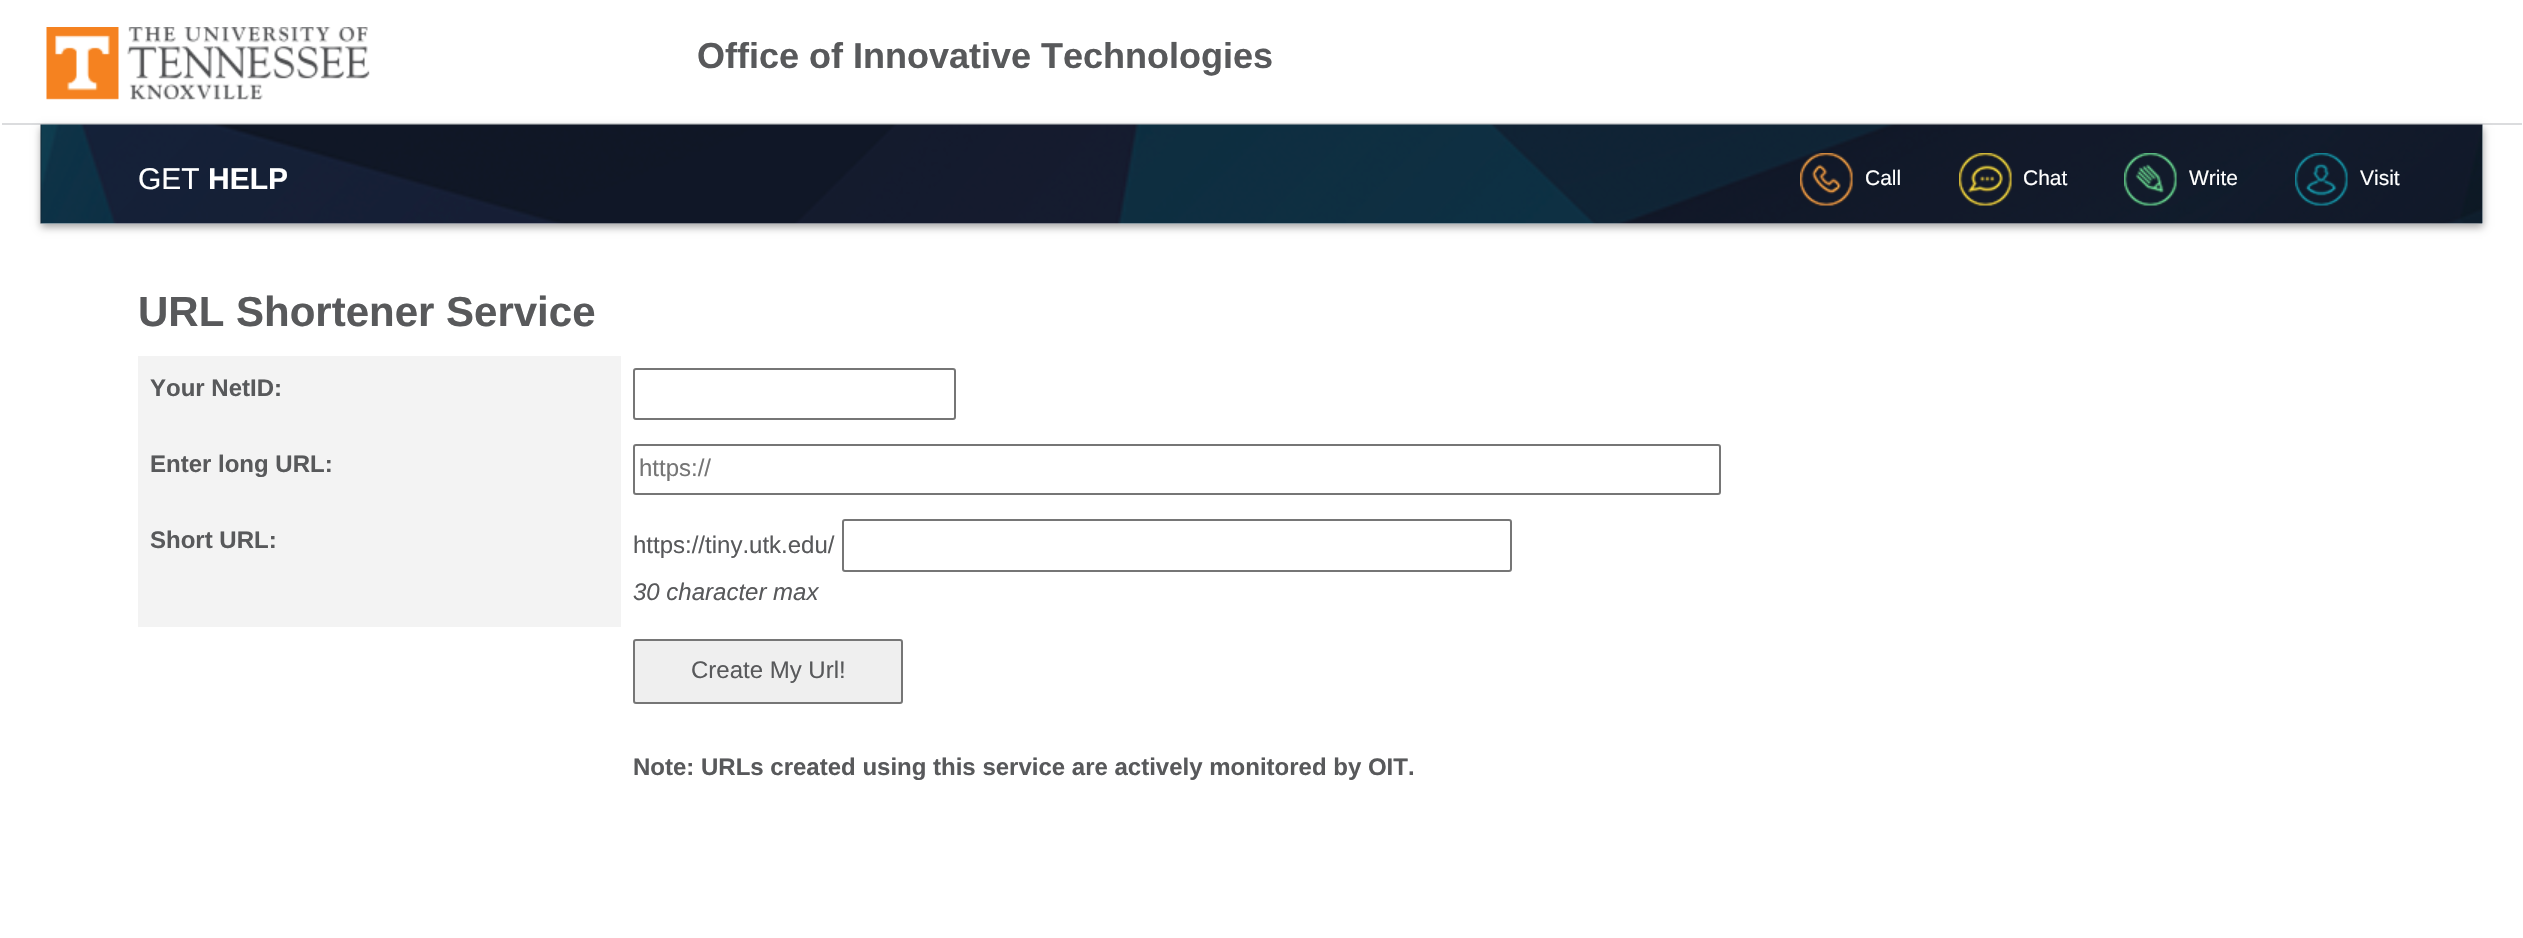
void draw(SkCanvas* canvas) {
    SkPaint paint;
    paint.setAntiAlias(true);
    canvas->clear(0xFFFFFFFF);
    paint.setColor(0xFFDBDCDE);
    canvas->drawRect(SkRect::MakeXYWH(2, 123, 2520, 2), paint);
    canvas->drawImageRect(SkImages::DeferredFromEncodedData(SkData::MakeFromFileName("img1.png")), SkRect::MakeXYWH(46, 27, 324, 73), SkSamplingOptions());
    SkFont font1(fontMgr->matchFamilyStyle("Liberation Sans", SkFontStyle::Bold()), 36);
    font1.setSubpixel(true);
    paint.setColor(0xFF58595B);
    canvas->drawString("Office of Innovative Technologies", 697, 68, font1, paint);
    canvas->save();
    canvas->clipPath(SkPathBuilder(SkPathFillType::kEvenOdd).moveTo(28, 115).lineTo(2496, 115).lineTo(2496, 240).lineTo(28, 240).close().moveTo(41, 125).lineTo(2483, 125).lineTo(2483, 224).lineTo(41, 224).close().detach(), true);
    paint.setColor(0x5C000000);
    paint.setMaskFilter(SkMaskFilter::MakeBlur(kNormal_SkBlurStyle, 4));
    canvas->drawRect(SkRect::MakeXYWH(41, 128, 2442, 99), paint);
    paint.setMaskFilter(nullptr);
    canvas->restore();
    canvas->drawImageRect(SkImages::DeferredFromEncodedData(SkData::MakeFromFileName("img2.png")), SkRect::MakeXYWH(40, 124, 2443, 100), SkSamplingOptions());
    SkFont font2(fontMgr->matchFamilyStyle("Liberation Sans", SkFontStyle::Normal()), 30);
    font2.setSubpixel(true);
    paint.setColor(0xFFFFFFFF);
    canvas->drawString("GET", 138, 189, font2, paint);
    SkFont font3(fontMgr->matchFamilyStyle("Liberation Sans", SkFontStyle::Bold()), 30);
    font3.setSubpixel(true);
    canvas->drawString("HELP", 208, 189, font3, paint);
    canvas->drawImageRect(SkImages::DeferredFromEncodedData(SkData::MakeFromFileName("img3.png")), SkRect::MakeXYWH(1800, 153, 53, 53), SkSamplingOptions());
    SkFont font4(fontMgr->matchFamilyStyle("Liberation Sans", SkFontStyle::Normal()), 21);
    font4.setSubpixel(true);
    canvas->drawString("Call", 1865, 185, font4, paint);
    canvas->drawImageRect(SkImages::DeferredFromEncodedData(SkData::MakeFromFileName("img4.png")), SkRect::MakeXYWH(1959, 153, 53, 53), SkSamplingOptions());
    canvas->drawString("Chat", 2023, 185, font4, paint);
    canvas->drawImageRect(SkImages::DeferredFromEncodedData(SkData::MakeFromFileName("img5.png")), SkRect::MakeXYWH(2124, 153, 53, 53), SkSamplingOptions());
    canvas->drawString("Write", 2189, 185, font4, paint);
    canvas->drawImageRect(SkImages::DeferredFromEncodedData(SkData::MakeFromFileName("img6.png")), SkRect::MakeXYWH(2295, 153, 53, 53), SkSamplingOptions());
    canvas->drawString("Visit", 2360, 185, font4, paint);
    SkFont font5(fontMgr->matchFamilyStyle("Liberation Sans", SkFontStyle::Bold()), 42);
    font5.setSubpixel(true);
    paint.setColor(0xFF58595B);
    canvas->drawString("URL Shortener Service", 138, 326, font5, paint);
    paint.setColor(0xFFF3F3F3);
    canvas->drawRect(SkRect::MakeXYWH(138, 356, 483, 271), paint);
    SkFont font6(fontMgr->matchFamilyStyle("Liberation Sans", SkFontStyle::Bold()), 24);
    font6.setSubpixel(true);
    paint.setColor(0xFF58595B);
    canvas->drawString("Your NetID:", 150, 396, font6, paint);
    paint.setStyle(SkPaint::kStroke_Style);
    paint.setStrokeWidth(2);
    paint.setColor(0xFF767676);
    canvas->drawRoundRect(SkRect::MakeXYWH(634, 369, 321, 50), 2, 2, paint);
    paint.setStyle(SkPaint::kFill_Style);
    paint.setColor(0xFF58595B);
    canvas->drawString("Enter long URL:", 150, 472, font6, paint);
    paint.setStyle(SkPaint::kStroke_Style);
    paint.setColor(0xFF767676);
    canvas->drawRoundRect(SkRect::MakeXYWH(634, 445, 1086, 49), 2, 2, paint);
    SkFont font7(fontMgr->matchFamilyStyle("Liberation Sans", SkFontStyle::Normal()), 24);
    font7.setSubpixel(true);
    paint.setStyle(SkPaint::kFill_Style);
    paint.setColor(0xFF757575);
    canvas->drawString("https://", 639, 476, font7, paint);
    paint.setColor(0xFF58595B);
    canvas->drawString("Short URL:", 150, 548, font6, paint);
    canvas->drawString("https://tiny.utk.edu/", 633, 553, font7, paint);
    paint.setStyle(SkPaint::kStroke_Style);
    paint.setColor(0xFF767676);
    canvas->drawRoundRect(SkRect::MakeXYWH(843, 520, 668, 51), 2, 2, paint);
    SkFont font8(fontMgr->matchFamilyStyle("Liberation Sans", SkFontStyle::Italic()), 24);
    font8.setSubpixel(true);
    paint.setStyle(SkPaint::kFill_Style);
    paint.setColor(0xFF58595B);
    canvas->drawString("30 character max", 633, 600, font8, paint);
    paint.setColor(0xFFEFEFEF);
    canvas->drawRoundRect(SkRect::MakeXYWH(634, 640, 268, 63), 2, 2, paint);
    paint.setStyle(SkPaint::kStroke_Style);
    paint.setColor(0xFF767676);
    canvas->drawRoundRect(SkRect::MakeXYWH(634, 640, 268, 63), 2, 2, paint);
    paint.setStyle(SkPaint::kFill_Style);
    paint.setColor(0xFF58595B);
    canvas->drawString("Create My Url!", 691, 678, font7, paint);
    canvas->drawString("Note: URLs created using this service are actively monitored by OIT.", 633, 775, font6, paint);
}
